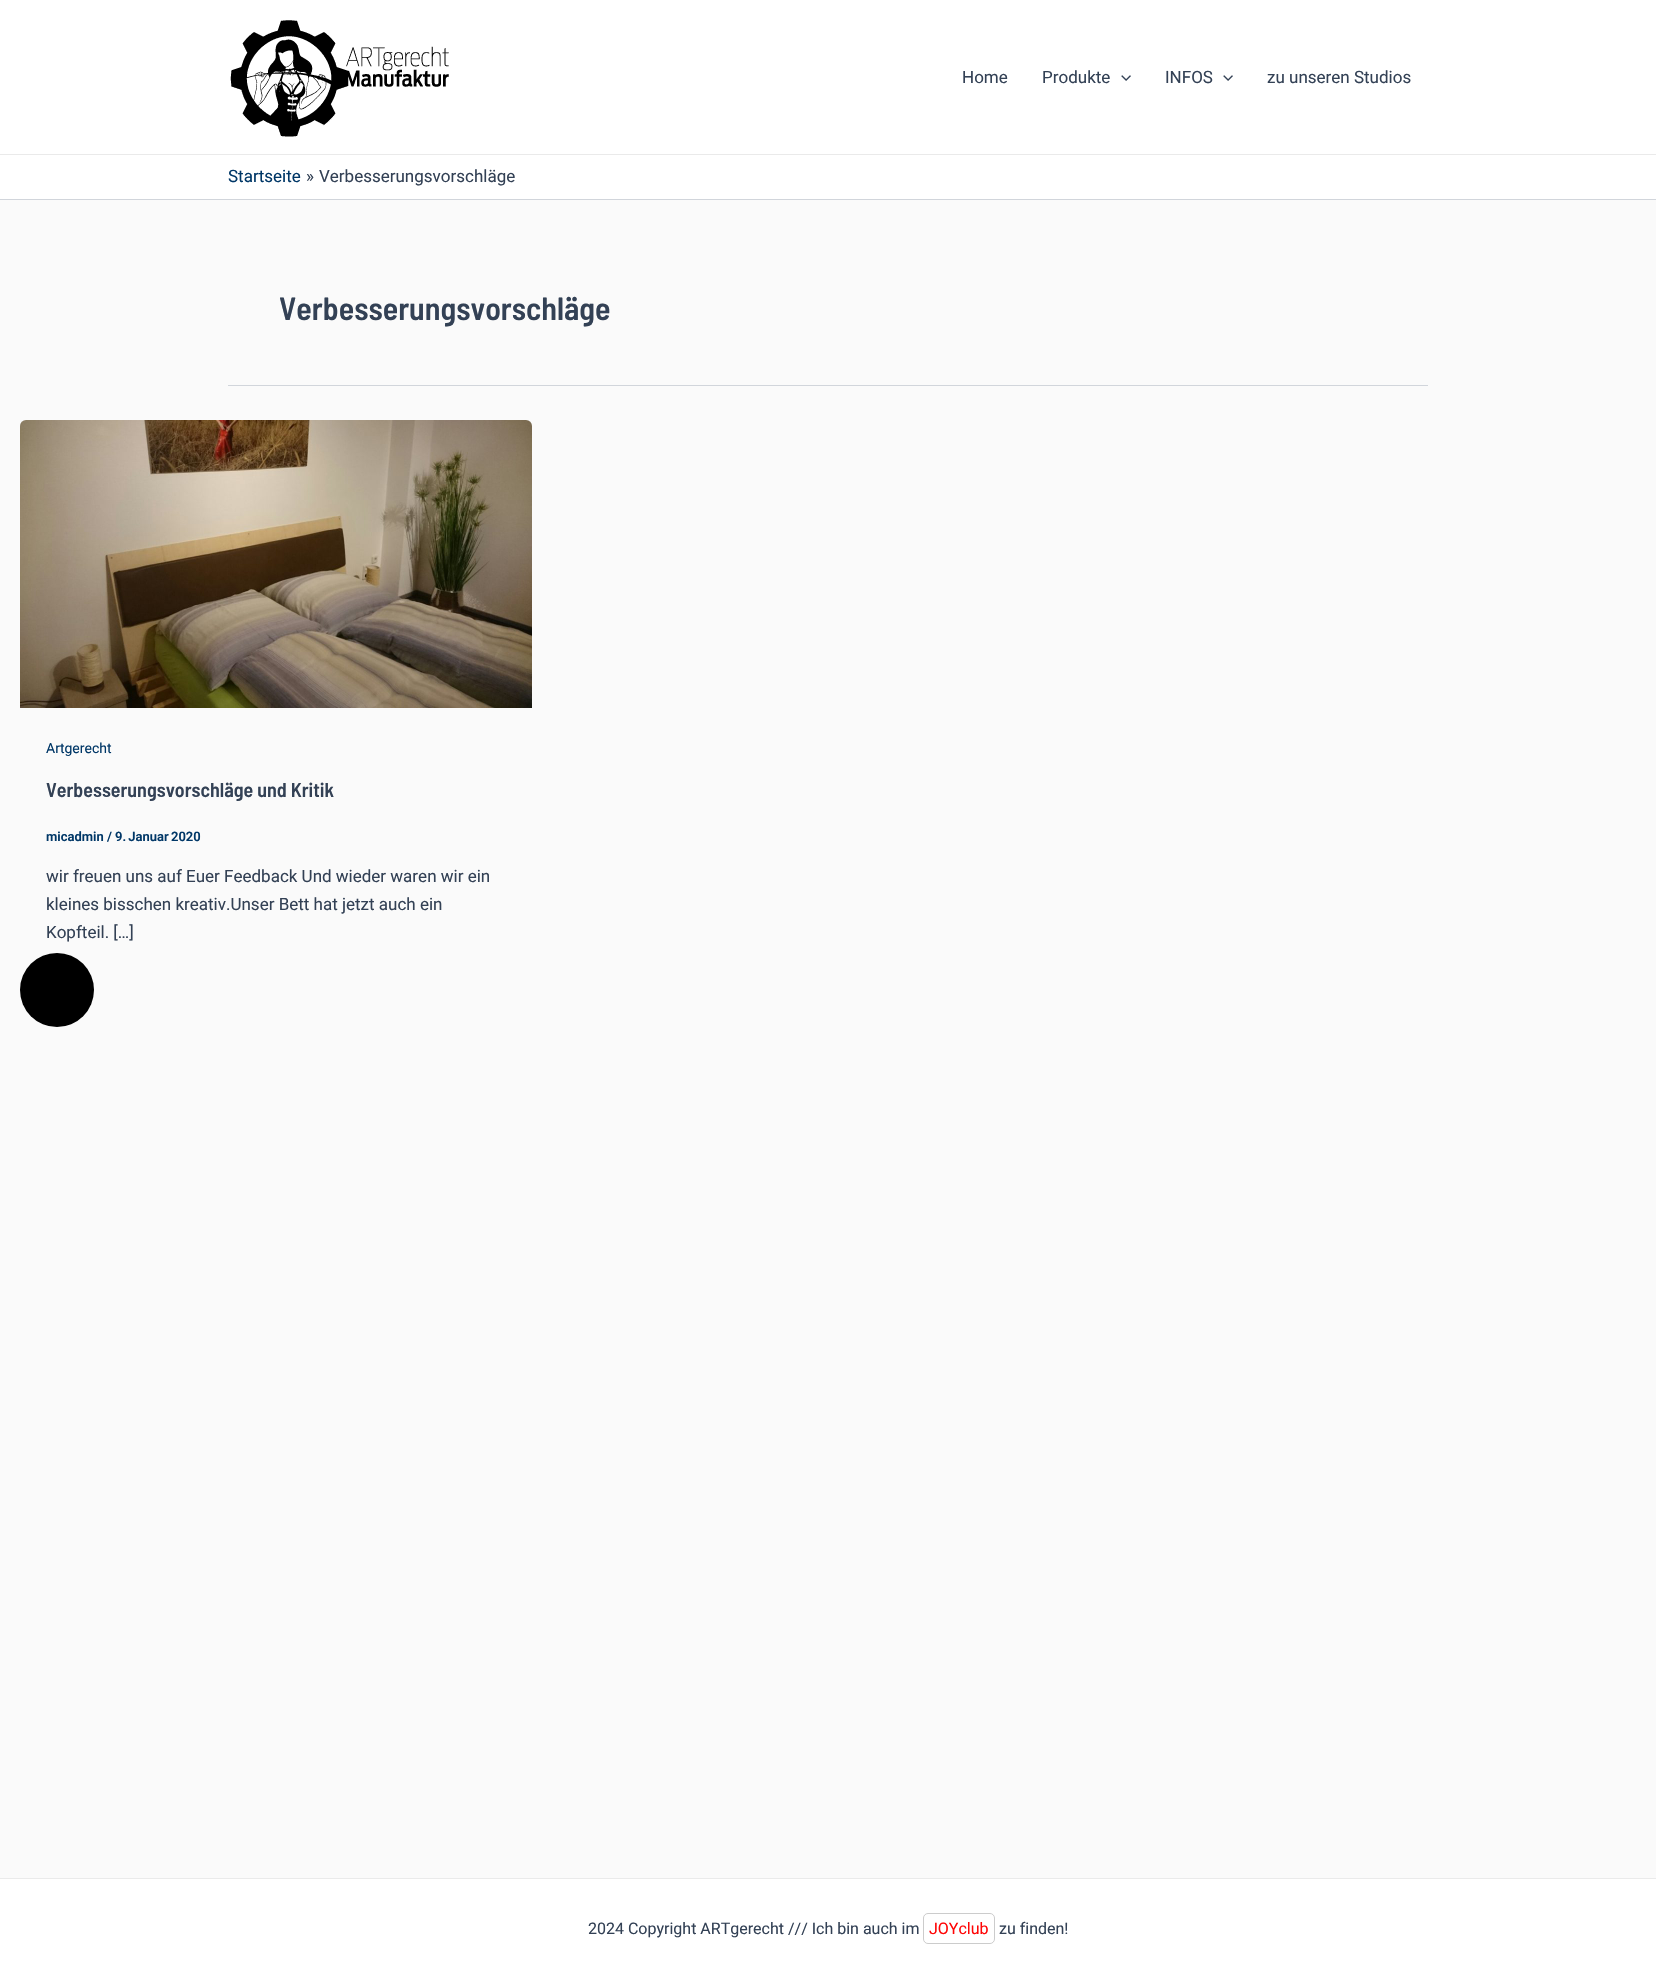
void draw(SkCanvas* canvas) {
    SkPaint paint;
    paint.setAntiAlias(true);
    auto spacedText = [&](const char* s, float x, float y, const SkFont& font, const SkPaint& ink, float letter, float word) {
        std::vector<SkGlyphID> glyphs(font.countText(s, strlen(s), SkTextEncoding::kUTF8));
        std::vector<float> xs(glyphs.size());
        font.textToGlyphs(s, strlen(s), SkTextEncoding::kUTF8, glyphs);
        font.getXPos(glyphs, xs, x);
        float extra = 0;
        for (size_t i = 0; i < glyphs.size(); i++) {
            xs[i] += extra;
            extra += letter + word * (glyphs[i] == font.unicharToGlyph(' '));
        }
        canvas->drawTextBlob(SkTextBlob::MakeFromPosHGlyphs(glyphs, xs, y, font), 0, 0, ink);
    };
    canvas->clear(0xFFFAFAFA);
    paint.setColor(0xFFFFFFFF);
    canvas->drawRect(SkRect::MakeXYWH(0, 0, 1656, 154), paint);
    paint.setColor(0xFFEAEAEA);
    canvas->drawRect(SkRect::MakeXYWH(0, 154, 1656, 1), paint);
    canvas->drawImageRect(SkImages::DeferredFromEncodedData(SkData::MakeFromFileName("img1.png")), SkRect::MakeXYWH(230, 20, 219, 117), SkSamplingOptions());
    SkFont font1(fontMgr->matchFamilyStyle("Roboto", SkFontStyle::Normal()), 17);
    font1.setSubpixel(true);
    paint.setColor(0xFF334155);
    canvas->drawString("Home", 962, 83, font1, paint);
    canvas->drawString("Produkte", 1042, 83, font1, paint);
    canvas->drawImageRect(SkImages::DeferredFromEncodedData(SkData::MakeFromFileName("img2.png")), SkRect::MakeXYWH(1121, 75, 10, 6), SkSamplingOptions());
    canvas->drawString("INFOS", 1165, 83, font1, paint);
    canvas->drawImageRect(SkImages::DeferredFromEncodedData(SkData::MakeFromFileName("img2.png")), SkRect::MakeXYWH(1223, 75, 10, 6), SkSamplingOptions());
    canvas->drawString("zu unseren Studios", 1267, 83, font1, paint);
    paint.setColor(0xFFFFFFFF);
    canvas->drawRect(SkRect::MakeXYWH(0, 155, 1656, 44), paint);
    paint.setColor(0xFFD1D5DB);
    canvas->drawRect(SkRect::MakeXYWH(0, 199, 1656, 1), paint);
    paint.setColor(0xFF003767);
    canvas->drawString("Startseite", 228, 182, font1, paint);
    paint.setColor(0xFF334155);
    canvas->drawString("»", 306, 182, font1, paint);
    canvas->drawString("Verbesserungsvorschläge", 319, 182, font1, paint);
    paint.setColor(0xFFD1D5DB);
    canvas->drawRect(SkRect::MakeXYWH(228, 385, 1200, 1), paint);
    SkFont font2(fontMgr->matchFamilyStyle("Barlow Semi Condensed", SkFontStyle(600, SkFontStyle::kNormal_Width, SkFontStyle::kUpright_Slant)), 32);
    font2.setSubpixel(true);
    paint.setColor(0xFF334155);
    canvas->drawString("Verbesserungsvorschläge", 279, 320, font2, paint);
    canvas->drawImageRect(SkImages::DeferredFromEncodedData(SkData::MakeFromFileName("img3.png")), SkRect::MakeXYWH(20, 420, 512, 288), SkSamplingOptions());
    SkFont font3(fontMgr->matchFamilyStyle("Roboto", SkFontStyle::Normal()), 14);
    font3.setSubpixel(true);
    paint.setColor(0xFF003767);
    canvas->drawString("Artgerecht", 46, 753, font3, paint);
    SkFont font4(fontMgr->matchFamilyStyle("Barlow Semi Condensed", SkFontStyle(600, SkFontStyle::kNormal_Width, SkFontStyle::kUpright_Slant)), 20);
    font4.setSubpixel(true);
    paint.setColor(0xFF334155);
    canvas->drawString("Verbesserungsvorschläge und Kritik", 46, 797, font4, paint);
    SkFont font5(fontMgr->matchFamilyStyle("Roboto", SkFontStyle(600, SkFontStyle::kNormal_Width, SkFontStyle::kUpright_Slant)), 13);
    font5.setSubpixel(true);
    paint.setColor(0xFF003767);
    canvas->drawString("micadmin /", 46, 841, font5, paint);
    spacedText("9. Januar 2020", 115, 841, font5, paint, 0, -1);
    paint.setColor(0xFF334155);
    canvas->drawString("wir freuen uns auf Euer Feedback Und wieder waren wir ein", 46, 882, font1, paint);
    canvas->drawString("kleines bisschen kreativ.Unser Bett hat jetzt auch ein", 46, 910, font1, paint);
    canvas->drawString("Kopfteil. […]", 46, 938, font1, paint);
    paint.setColor(0xFFFFFFFF);
    canvas->drawRect(SkRect::MakeXYWH(0, 1879, 1656, 100), paint);
    paint.setColor(0xFFEAEAEA);
    canvas->drawRect(SkRect::MakeXYWH(0, 1878, 1656, 1), paint);
    SkFont font6(fontMgr->matchFamilyStyle("Roboto", SkFontStyle::Normal()), 16);
    font6.setSubpixel(true);
    paint.setColor(0xFF334155);
    canvas->drawString("2024 Copyright ARTgerecht /// Ich bin auch im", 588, 1934, font6, paint);
    paint.setStyle(SkPaint::kStroke_Style);
    paint.setStrokeWidth(1);
    paint.setColor(0xFFCCCCCC);
    canvas->drawRoundRect(SkRect::MakeXYWH(923.5f, 1913.5f, 71, 30), 4.5f, 4.5f, paint);
    paint.setStyle(SkPaint::kFill_Style);
    paint.setColor(0xFFFF0606);
    canvas->drawString("JOYclub", 929, 1934, font6, paint);
    paint.setColor(0xFF334155);
    canvas->drawString("zu finden!", 999, 1934, font6, paint);
    paint.setColor(0xFF000000);
    canvas->drawCircle(57, 990, 37, paint);
}
